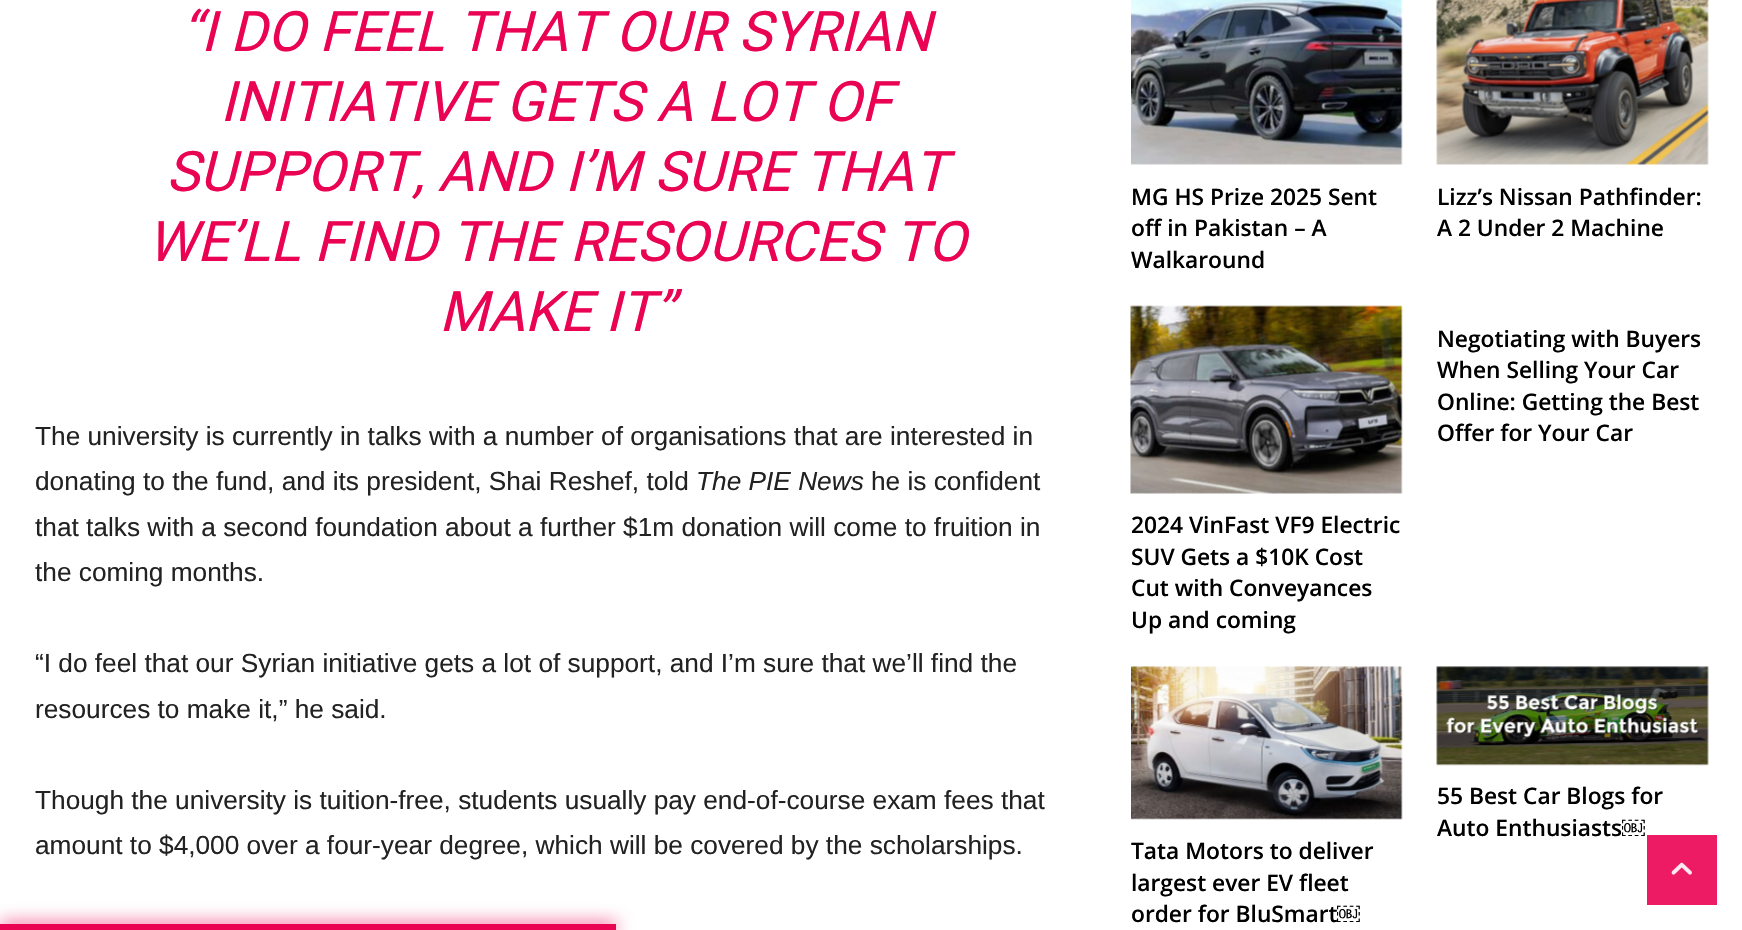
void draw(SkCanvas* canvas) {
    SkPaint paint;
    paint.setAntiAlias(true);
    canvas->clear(0xFFFFFFFF);
    SkFont font1(fontMgr->matchFamilyStyle("Roboto", SkFontStyle::Italic()), 56);
    font1.setSubpixel(true);
    paint.setColor(0xFFEA0253);
    canvas->drawString("“I DO FEEL THAT OUR SYRIAN", 181, 51, font1, paint);
    canvas->drawString("INITIATIVE GETS A LOT OF", 220, 121, font1, paint);
    canvas->drawString("SUPPORT, AND I’M SURE THAT", 166, 191, font1, paint);
    canvas->drawString("WE’LL FIND THE RESOURCES TO", 147, 261, font1, paint);
    canvas->drawString("MAKE IT”", 439, 331, font1, paint);
    SkFont font2(fontMgr->matchFamilyStyle("Liberation Sans", SkFontStyle::Normal()), 26.25f);
    font2.setSubpixel(true);
    paint.setColor(0xFF222222);
    canvas->drawString("The university is currently in talks with a number of organisations that are interested in", 35, 445, font2, paint);
    canvas->drawString("donating to the fund, and its president, Shai Reshef, told", 35, 490, font2, paint);
    SkFont font3(fontMgr->matchFamilyStyle("Liberation Sans", SkFontStyle::Italic()), 26.25f);
    font3.setSubpixel(true);
    canvas->drawString("The PIE News", 696, 490, font3, paint);
    canvas->drawString("he is confident", 871, 490, font2, paint);
    canvas->drawString("that talks with a second foundation about a further $1m donation will come to fruition in", 35, 536, font2, paint);
    canvas->drawString("the coming months.", 35, 581, font2, paint);
    canvas->drawString("“I do feel that our Syrian initiative gets a lot of support, and I’m sure that we’ll find the", 35, 672, font2, paint);
    canvas->drawString("resources to make it,” he said.", 35, 718, font2, paint);
    canvas->drawString("Though the university is tuition-free, students usually pay end-of-course exam fees that", 35, 809, font2, paint);
    canvas->drawString("amount to $4,000 over a four-year degree, which will be covered by the scholarships.", 35, 854, font2, paint);
    canvas->drawImageRect(SkImages::DeferredFromEncodedData(SkData::MakeFromFileName("img1.png")), SkRect::MakeXYWH(1131, 0, 272, 165), SkSamplingOptions());
    SkFont font4(fontMgr->matchFamilyStyle("Open Sans", SkFontStyle(600, SkFontStyle::kNormal_Width, SkFontStyle::kUpright_Slant)), 22.75f);
    font4.setSubpixel(true);
    paint.setColor(0xFF000000);
    canvas->drawString("MG HS Prize 2025 Sent", 1131, 205, font4, paint);
    canvas->drawString("off in Pakistan – A", 1131, 236, font4, paint);
    canvas->drawString("Walkaround", 1131, 268, font4, paint);
    canvas->drawImageRect(SkImages::DeferredFromEncodedData(SkData::MakeFromFileName("img2.png")), SkRect::MakeXYWH(1436, 0, 273, 165), SkSamplingOptions());
    canvas->drawString("Lizz’s Nissan Pathfinder:", 1437, 205, font4, paint);
    canvas->drawString("A 2 Under 2 Machine", 1437, 236, font4, paint);
    canvas->drawString("Negotiating with Buyers", 1437, 347, font4, paint);
    canvas->drawString("When Selling Your Car", 1437, 378, font4, paint);
    canvas->drawString("Online: Getting the Best", 1437, 410, font4, paint);
    canvas->drawString("Offer for Your Car", 1437, 441, font4, paint);
    canvas->drawImageRect(SkImages::DeferredFromEncodedData(SkData::MakeFromFileName("img3.png")), SkRect::MakeXYWH(1130, 305, 273, 189), SkSamplingOptions());
    canvas->drawString("2024 VinFast VF9 Electric", 1131, 533, font4, paint);
    canvas->drawString("SUV Gets a $10K Cost", 1131, 565, font4, paint);
    canvas->drawString("Cut with Conveyances", 1131, 596, font4, paint);
    canvas->drawString("Up and coming", 1131, 628, font4, paint);
    canvas->drawImageRect(SkImages::DeferredFromEncodedData(SkData::MakeFromFileName("img4.png")), SkRect::MakeXYWH(1436, 666, 273, 100), SkSamplingOptions());
    canvas->drawString("55 Best Car Blogs for", 1437, 804, font4, paint);
    canvas->drawString("Auto Enthusiasts", 1437, 836, font4, paint);
    SkFont font5(fontMgr->matchFamilyStyle("Liberation Sans", SkFontStyle::Bold()), 22.75f);
    font5.setSubpixel(true);
    canvas->drawString("￼", 1622, 836, font5, paint);
    canvas->drawImageRect(SkImages::DeferredFromEncodedData(SkData::MakeFromFileName("img5.png")), SkRect::MakeXYWH(1131, 666, 272, 154), SkSamplingOptions());
    canvas->drawString("Tata Motors to deliver", 1131, 859, font4, paint);
    canvas->drawString("largest ever EV fleet", 1131, 891, font4, paint);
    canvas->drawString("order for BluSmart", 1131, 922, font4, paint);
    canvas->drawString("￼", 1337, 922, font5, paint);
    paint.setColor(0xFFEC1B64);
    canvas->drawRect(SkRect::MakeXYWH(1647, 835, 70, 70), paint);
    canvas->drawImageRect(SkImages::DeferredFromEncodedData(SkData::MakeFromFileName("img6.png")), SkRect::MakeXYWH(1671, 862, 21, 13), SkSamplingOptions());
    paint.setColor(0xFFEA0253);
    paint.setMaskFilter(SkMaskFilter::MakeBlur(kNormal_SkBlurStyle, 9));
    canvas->drawRect(SkRect::MakeXYWH(0, 924, 616, 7), paint);
    paint.setMaskFilter(nullptr);
    canvas->drawRect(SkRect::MakeXYWH(0, 924, 616, 6), paint);
}
